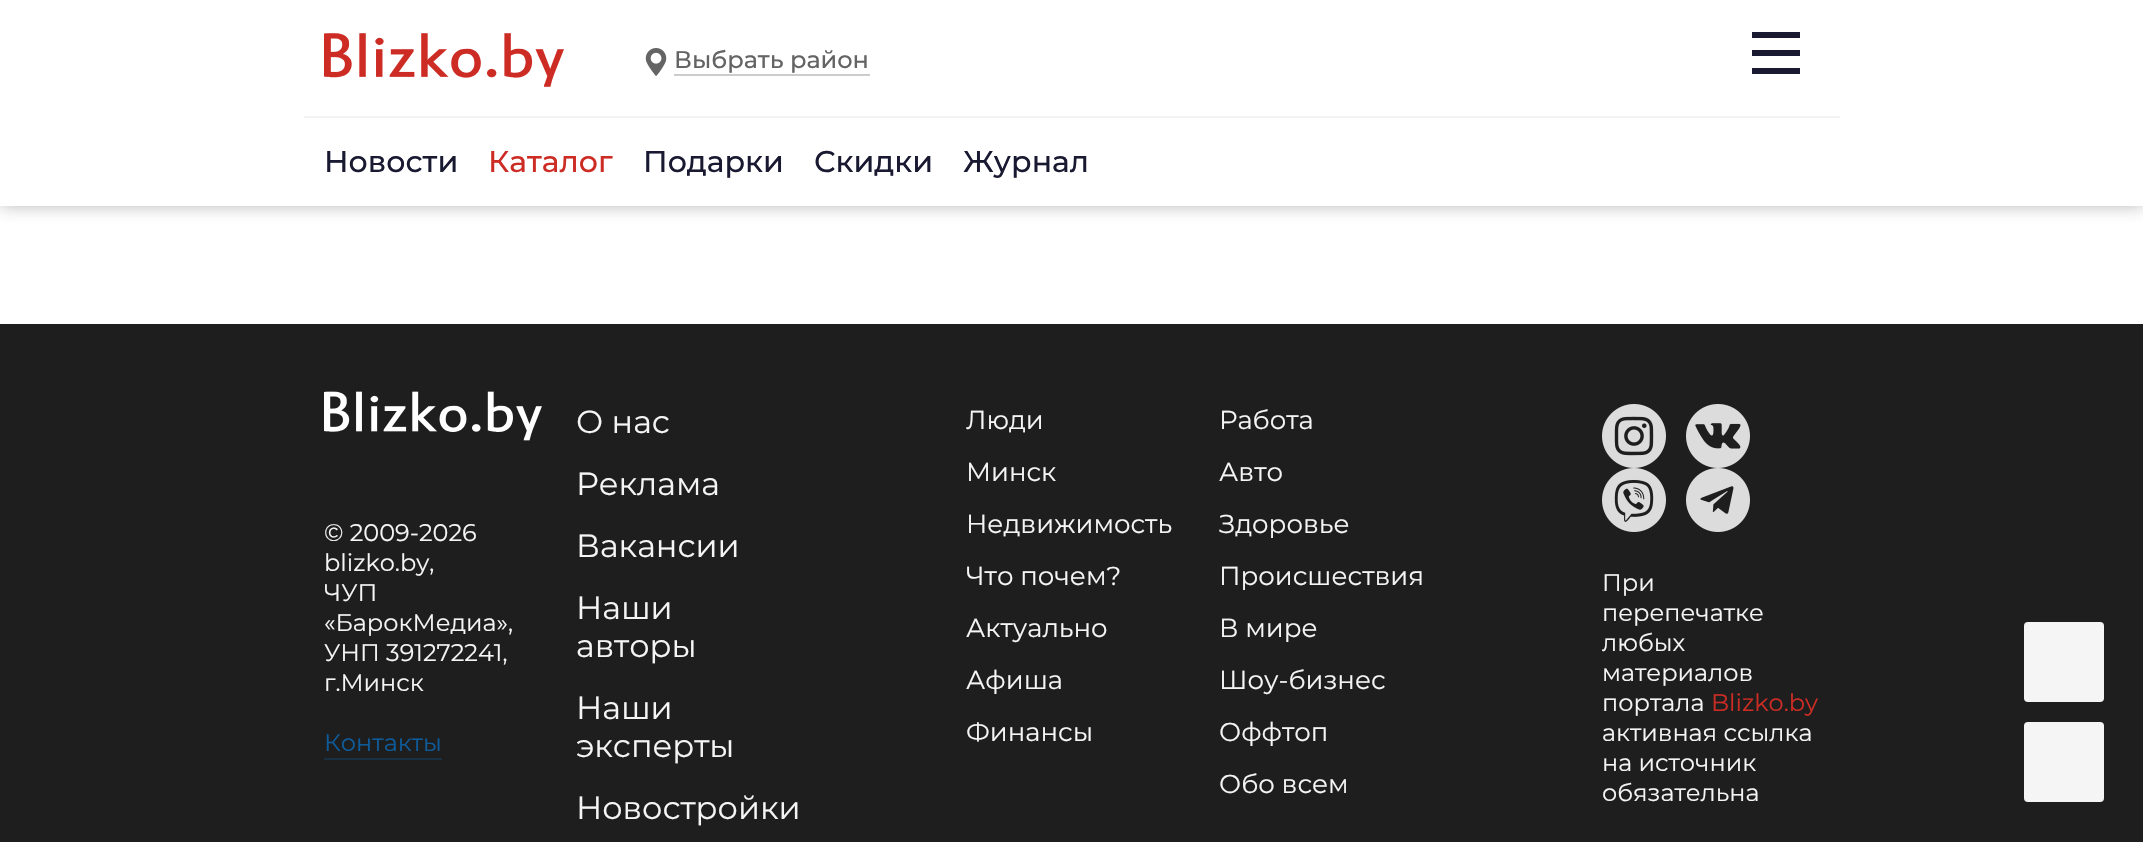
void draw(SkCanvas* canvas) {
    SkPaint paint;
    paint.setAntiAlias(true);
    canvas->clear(0xFFFFFFFF);
    paint.setColor(0x59333333);
    paint.setMaskFilter(SkMaskFilter::MakeBlur(kNormal_SkBlurStyle, 8));
    canvas->drawRect(SkRect::MakeXYWH(0, 0, 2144, 206), paint);
    paint.setMaskFilter(nullptr);
    paint.setColor(0xFFFFFFFF);
    canvas->drawRect(SkRect::MakeXYWH(0, 0, 2143, 206), paint);
    paint.setColor(0xFFF4F3F1);
    canvas->drawRect(SkRect::MakeXYWH(304, 116, 1536, 2), paint);
    canvas->drawImageRect(SkImages::DeferredFromEncodedData(SkData::MakeFromFileName("img1.png")), SkRect::MakeXYWH(324, 33, 240, 54), SkSamplingOptions());
    canvas->drawImageRect(SkImages::DeferredFromEncodedData(SkData::MakeFromFileName("img2.png")), SkRect::MakeXYWH(645, 48, 22, 28), SkSamplingOptions());
    SkFont font1(fontMgr->matchFamilyStyle("Montserrat", SkFontStyle(500, SkFontStyle::kNormal_Width, SkFontStyle::kUpright_Slant)), 24);
    font1.setSubpixel(true);
    paint.setColor(0xFF646464);
    canvas->drawString("Выбрать район", 674, 68, font1, paint);
    paint.setColor(0xFFCCCCCC);
    canvas->drawRect(SkRect::MakeXYWH(674, 74, 196, 2), paint);
    paint.setColor(0xFF191A31);
    canvas->drawRect(SkRect::MakeXYWH(1752, 50, 48, 6), paint);
    canvas->drawRect(SkRect::MakeXYWH(1752, 32, 48, 6), paint);
    canvas->drawRect(SkRect::MakeXYWH(1752, 68, 48, 6), paint);
    SkFont font2(fontMgr->matchFamilyStyle("Montserrat", SkFontStyle(500, SkFontStyle::kNormal_Width, SkFontStyle::kUpright_Slant)), 30);
    font2.setSubpixel(true);
    canvas->drawString("Новости", 324, 172, font2, paint);
    paint.setColor(0xFFCD2C24);
    canvas->drawString("Каталог", 488, 172, font2, paint);
    paint.setColor(0xFF191A31);
    canvas->drawString("Подарки", 643, 172, font2, paint);
    canvas->drawString("Скидки", 814, 172, font2, paint);
    canvas->drawString("Журнал", 963, 172, font2, paint);
    paint.setColor(0xFF1E1E1E);
    canvas->drawRect(SkRect::MakeXYWH(0, 324, 2143, 518), paint);
    canvas->drawImageRect(SkImages::DeferredFromEncodedData(SkData::MakeFromFileName("img3.png")), SkRect::MakeXYWH(324, 391, 218, 50), SkSamplingOptions());
    SkFont font3(fontMgr->matchFamilyStyle("Montserrat", SkFontStyle::Normal()), 24);
    font3.setSubpixel(true);
    paint.setColor(0xFFF5F5F5);
    canvas->drawString("© 2009-2026", 324, 541, font3, paint);
    canvas->drawString("blizko.by,", 324, 571, font3, paint);
    canvas->drawString("ЧУП", 324, 601, font3, paint);
    canvas->drawString("«БарокМедиа»,", 324, 631, font3, paint);
    canvas->drawString("УНП 391272241,", 324, 661, font3, paint);
    canvas->drawString("г.Минск", 324, 691, font3, paint);
    paint.setColor(0xFF0E5B9A);
    canvas->drawString("Контакты", 324, 751, font3, paint);
    paint.setColor(0xFF193043);
    canvas->drawRect(SkRect::MakeXYWH(324, 758, 118, 2), paint);
    SkFont font4(fontMgr->matchFamilyStyle("Montserrat", SkFontStyle::Normal()), 32);
    font4.setSubpixel(true);
    paint.setColor(0xFFF5F5F5);
    canvas->drawString("О нас", 576, 433, font4, paint);
    canvas->drawString("Реклама", 576, 495, font4, paint);
    canvas->drawString("Вакансии", 576, 557, font4, paint);
    canvas->drawString("Наши", 576, 619, font4, paint);
    canvas->drawString("авторы", 576, 657, font4, paint);
    canvas->drawString("Наши", 576, 719, font4, paint);
    canvas->drawString("эксперты", 576, 757, font4, paint);
    canvas->drawString("Новостройки", 576, 819, font4, paint);
    SkFont font5(fontMgr->matchFamilyStyle("Montserrat", SkFontStyle::Normal()), 26);
    font5.setSubpixel(true);
    canvas->drawString("Люди", 966, 429, font5, paint);
    canvas->drawString("Минск", 966, 481, font5, paint);
    canvas->drawString("Недвижимость", 966, 533, font5, paint);
    canvas->drawString("Что почем?", 966, 585, font5, paint);
    canvas->drawString("Актуально", 966, 637, font5, paint);
    canvas->drawString("Афиша", 966, 689, font5, paint);
    canvas->drawString("Финансы", 966, 741, font5, paint);
    canvas->drawString("Работа", 1219, 429, font5, paint);
    canvas->drawString("Авто", 1219, 481, font5, paint);
    canvas->drawString("Здоровье", 1219, 533, font5, paint);
    canvas->drawString("Происшествия", 1219, 585, font5, paint);
    canvas->drawString("В мире", 1219, 637, font5, paint);
    canvas->drawString("Шоу-бизнес", 1219, 689, font5, paint);
    canvas->drawString("Оффтоп", 1219, 741, font5, paint);
    canvas->drawString("Обо всем", 1219, 793, font5, paint);
    canvas->drawImageRect(SkImages::DeferredFromEncodedData(SkData::MakeFromFileName("img4.png")), SkRect::MakeXYWH(1602, 404, 64, 64), SkSamplingOptions());
    canvas->drawImageRect(SkImages::DeferredFromEncodedData(SkData::MakeFromFileName("img5.png")), SkRect::MakeXYWH(1686, 404, 64, 64), SkSamplingOptions());
    canvas->drawImageRect(SkImages::DeferredFromEncodedData(SkData::MakeFromFileName("img6.png")), SkRect::MakeXYWH(1602, 468, 64, 64), SkSamplingOptions());
    canvas->drawImageRect(SkImages::DeferredFromEncodedData(SkData::MakeFromFileName("img7.png")), SkRect::MakeXYWH(1686, 468, 64, 64), SkSamplingOptions());
    canvas->drawString("При", 1602, 591, font3, paint);
    canvas->drawString("перепечатке", 1602, 621, font3, paint);
    canvas->drawString("любых", 1602, 651, font3, paint);
    canvas->drawString("материалов", 1602, 681, font3, paint);
    canvas->drawString("портала", 1602, 711, font3, paint);
    paint.setColor(0xFFCD2C24);
    canvas->drawString("Blizko.by", 1711, 711, font3, paint);
    paint.setColor(0xFFF5F5F5);
    canvas->drawString("активная ссылка", 1602, 741, font3, paint);
    canvas->drawString("на источник", 1602, 771, font3, paint);
    canvas->drawString("обязательна", 1602, 801, font3, paint);
    canvas->drawRoundRect(SkRect::MakeXYWH(2024, 622, 80, 80), 4, 4, paint);
    canvas->drawRoundRect(SkRect::MakeXYWH(2024, 722, 80, 80), 4, 4, paint);
}
